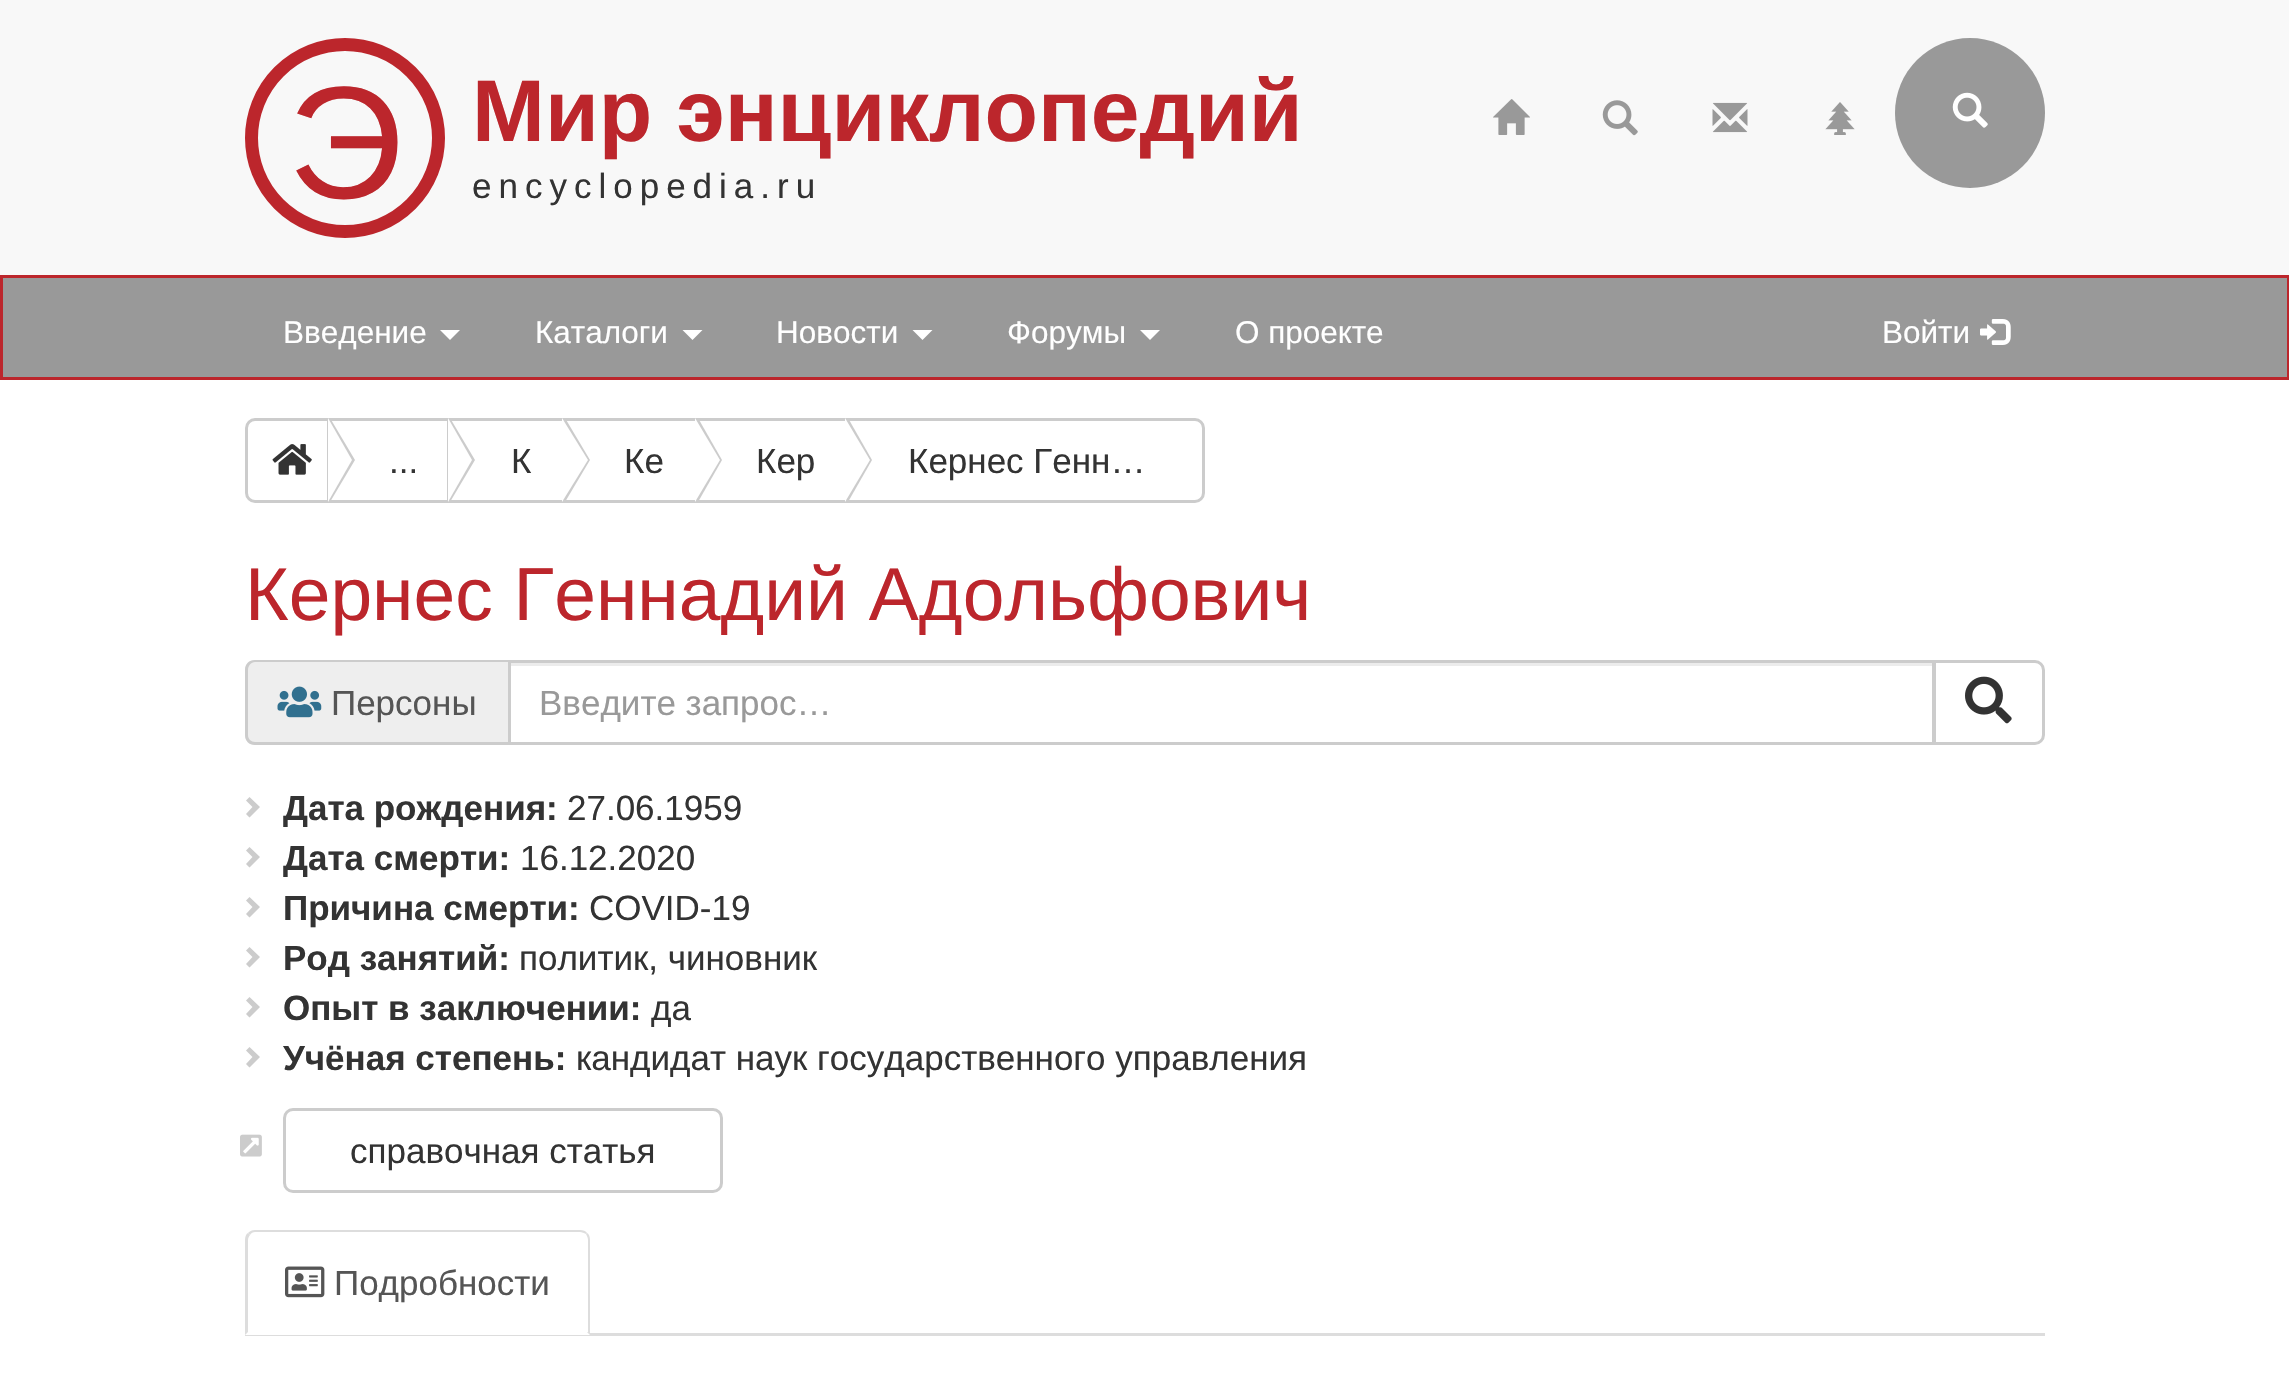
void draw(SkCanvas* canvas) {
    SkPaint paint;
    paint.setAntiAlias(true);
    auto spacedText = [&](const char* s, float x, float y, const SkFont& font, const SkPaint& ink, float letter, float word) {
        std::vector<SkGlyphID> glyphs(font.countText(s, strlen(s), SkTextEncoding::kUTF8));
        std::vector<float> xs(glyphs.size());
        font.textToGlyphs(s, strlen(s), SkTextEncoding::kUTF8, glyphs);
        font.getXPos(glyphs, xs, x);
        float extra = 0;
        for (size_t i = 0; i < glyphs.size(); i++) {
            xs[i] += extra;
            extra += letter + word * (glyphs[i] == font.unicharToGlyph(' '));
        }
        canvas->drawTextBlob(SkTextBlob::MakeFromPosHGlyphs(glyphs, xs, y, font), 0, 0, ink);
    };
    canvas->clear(0xFFFFFFFF);
    paint.setColor(0xFFF8F8F8);
    canvas->drawRect(SkRect::MakeXYWH(0, 0, 2289, 275), paint);
    paint.setStyle(SkPaint::kStroke_Style);
    paint.setStrokeWidth(13);
    paint.setColor(0xFFBC262C);
    canvas->drawCircle(345, 138, 93.5f, paint);
    SkFont font1(fontMgr->matchFamilyStyle("Liberation Sans", SkFontStyle::Normal()), 160);
    font1.setSubpixel(true);
    paint.setStyle(SkPaint::kFill_Style);
    canvas->drawString("Э", 288, 198, font1, paint);
    SkFont font2(fontMgr->matchFamilyStyle("Liberation Sans", SkFontStyle::Bold()), 87.5f);
    font2.setSubpixel(true);
    canvas->drawString("Мир энциклопедий", 472, 141, font2, paint);
    SkFont font3(fontMgr->matchFamilyStyle("Liberation Sans", SkFontStyle::Normal()), 35);
    font3.setSubpixel(true);
    paint.setColor(0xFF333333);
    spacedText("encyclopedia.ru", 472, 198, font3, paint, 7, 0);
    canvas->drawImageRect(SkImages::DeferredFromEncodedData(SkData::MakeFromFileName("img1.png")), SkRect::MakeXYWH(1493, 99, 37, 36), SkSamplingOptions());
    canvas->drawImageRect(SkImages::DeferredFromEncodedData(SkData::MakeFromFileName("img2.png")), SkRect::MakeXYWH(1602, 100, 36, 36), SkSamplingOptions());
    canvas->drawImageRect(SkImages::DeferredFromEncodedData(SkData::MakeFromFileName("img3.png")), SkRect::MakeXYWH(1712, 102, 36, 31), SkSamplingOptions());
    canvas->drawImageRect(SkImages::DeferredFromEncodedData(SkData::MakeFromFileName("img4.png")), SkRect::MakeXYWH(1825, 102, 30, 33), SkSamplingOptions());
    paint.setColor(0xFF999999);
    canvas->drawCircle(1970, 113, 75, paint);
    canvas->drawImageRect(SkImages::DeferredFromEncodedData(SkData::MakeFromFileName("img5.png")), SkRect::MakeXYWH(1952, 92, 36, 36), SkSamplingOptions());
    canvas->drawRect(SkRect::MakeXYWH(1.5f, 276.5f, 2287, 102), paint);
    paint.setStyle(SkPaint::kStroke_Style);
    paint.setStrokeWidth(3);
    paint.setColor(0xFFBC262C);
    canvas->drawRect(SkRect::MakeXYWH(1.5f, 276.5f, 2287, 102), paint);
    SkFont font4(fontMgr->matchFamilyStyle("Liberation Sans", SkFontStyle::Normal()), 31.5f);
    font4.setSubpixel(true);
    paint.setStyle(SkPaint::kFill_Style);
    paint.setColor(0xFFFFFFFF);
    canvas->drawString("Введение", 283, 343, font4, paint);
    canvas->drawPath(SkPathBuilder().moveTo(440, 330).lineTo(460, 330).lineTo(450, 340).close().detach(), paint);
    canvas->drawString("Каталоги", 535, 343, font4, paint);
    canvas->drawPath(SkPathBuilder().moveTo(682.5f, 330).lineTo(702.5f, 330).lineTo(692.5f, 340).close().detach(), paint);
    canvas->drawString("Новости", 776, 343, font4, paint);
    canvas->drawPath(SkPathBuilder().moveTo(912.5f, 330).lineTo(932.5f, 330).lineTo(922.5f, 340).close().detach(), paint);
    canvas->drawString("Форумы", 1007, 343, font4, paint);
    canvas->drawPath(SkPathBuilder().moveTo(1140, 330).lineTo(1160, 330).lineTo(1150, 340).close().detach(), paint);
    canvas->drawString("О проекте", 1235, 343, font4, paint);
    canvas->drawString("Войти", 1882, 343, font4, paint);
    canvas->drawImageRect(SkImages::DeferredFromEncodedData(SkData::MakeFromFileName("img6.png")), SkRect::MakeXYWH(1980, 319, 31, 26), SkSamplingOptions());
    paint.setStyle(SkPaint::kStroke_Style);
    paint.setColor(0xFFCCCCCC);
    canvas->drawPath(SkPathBuilder().moveTo(255, 419.5f).lineTo(328.5f, 419.5f).lineTo(328.5f, 501.5f).lineTo(255, 501.5f).cubicTo(250.5f, 501.5f, 246.5f, 497.5f, 246.5f, 493).lineTo(246.5f, 428).cubicTo(246.5f, 423.5f, 250.5f, 419.5f, 255, 419.5f).close().detach(), paint);
    canvas->drawRect(SkRect::MakeXYWH(329.5f, 419.5f, 119, 82), paint);
    paint.setStyle(SkPaint::kFill_Style);
    canvas->drawPath(SkPathBuilder().moveTo(330, 502).lineTo(330, 418).lineTo(355, 460).close().detach(), paint);
    paint.setColor(0xFFFFFFFF);
    canvas->drawPath(SkPathBuilder().moveTo(328, 502).lineTo(328, 418).lineTo(352, 460).close().detach(), paint);
    canvas->drawImageRect(SkImages::DeferredFromEncodedData(SkData::MakeFromFileName("img7.png")), SkRect::MakeXYWH(272, 444, 40, 31), SkSamplingOptions());
    paint.setStyle(SkPaint::kStroke_Style);
    paint.setColor(0xFFCCCCCC);
    canvas->drawRect(SkRect::MakeXYWH(449.5f, 419.5f, 114, 82), paint);
    paint.setStyle(SkPaint::kFill_Style);
    canvas->drawPath(SkPathBuilder().moveTo(450, 502).lineTo(450, 418).lineTo(475, 460).close().detach(), paint);
    paint.setColor(0xFFFFFFFF);
    canvas->drawPath(SkPathBuilder().moveTo(448, 502).lineTo(448, 418).lineTo(472, 460).close().detach(), paint);
    paint.setColor(0xFF333333);
    canvas->drawString("...", 389, 473, font3, paint);
    paint.setStyle(SkPaint::kStroke_Style);
    paint.setColor(0xFFCCCCCC);
    canvas->drawRect(SkRect::MakeXYWH(564.5f, 419.5f, 132, 82), paint);
    paint.setStyle(SkPaint::kFill_Style);
    canvas->drawPath(SkPathBuilder().moveTo(565, 502).lineTo(565, 418).lineTo(590, 460).close().detach(), paint);
    paint.setColor(0xFFFFFFFF);
    canvas->drawPath(SkPathBuilder().moveTo(562, 502).lineTo(562, 418).lineTo(588, 460).close().detach(), paint);
    paint.setColor(0xFF333333);
    canvas->drawString("К", 511, 473, font3, paint);
    paint.setStyle(SkPaint::kStroke_Style);
    paint.setColor(0xFFCCCCCC);
    canvas->drawRect(SkRect::MakeXYWH(696.5f, 419.5f, 150, 82), paint);
    paint.setStyle(SkPaint::kFill_Style);
    canvas->drawPath(SkPathBuilder().moveTo(698, 502).lineTo(698, 418).lineTo(722, 460).close().detach(), paint);
    paint.setColor(0xFFFFFFFF);
    canvas->drawPath(SkPathBuilder().moveTo(695, 502).lineTo(695, 418).lineTo(720, 460).close().detach(), paint);
    paint.setColor(0xFF333333);
    canvas->drawString("Ке", 624, 473, font3, paint);
    paint.setColor(0xFFFFFFFF);
    canvas->drawPath(SkPathBuilder().moveTo(846.5f, 419.5f).lineTo(1195, 419.5f).cubicTo(1199.5f, 419.5f, 1203.5f, 423.5f, 1203.5f, 428).lineTo(1203.5f, 493).cubicTo(1203.5f, 497.5f, 1199.5f, 501.5f, 1195, 501.5f).lineTo(846.5f, 501.5f).close().detach(), paint);
    paint.setStyle(SkPaint::kStroke_Style);
    paint.setColor(0xFFCCCCCC);
    canvas->drawPath(SkPathBuilder().moveTo(846.5f, 419.5f).lineTo(1195, 419.5f).cubicTo(1199.5f, 419.5f, 1203.5f, 423.5f, 1203.5f, 428).lineTo(1203.5f, 493).cubicTo(1203.5f, 497.5f, 1199.5f, 501.5f, 1195, 501.5f).lineTo(846.5f, 501.5f).close().detach(), paint);
    paint.setStyle(SkPaint::kFill_Style);
    canvas->drawPath(SkPathBuilder().moveTo(848, 502).lineTo(848, 418).lineTo(872, 460).close().detach(), paint);
    paint.setColor(0xFFFFFFFF);
    canvas->drawPath(SkPathBuilder().moveTo(845, 502).lineTo(845, 418).lineTo(870, 460).close().detach(), paint);
    paint.setColor(0xFF333333);
    canvas->drawString("Кер", 756, 473, font3, paint);
    canvas->drawString("Кернес Генн…", 908, 473, font3, paint);
    SkFont font5(fontMgr->matchFamilyStyle("Liberation Sans", SkFontStyle::Normal()), 75);
    font5.setSubpixel(true);
    paint.setColor(0xFFBC262C);
    canvas->drawString("Кернес Геннадий Адольфович", 245, 620, font5, paint);
    paint.setColor(0xFFEEEEEE);
    canvas->drawPath(SkPathBuilder().moveTo(255, 660).lineTo(508, 660).lineTo(508, 745).lineTo(255, 745).cubicTo(249.5f, 745, 245, 740.5f, 245, 735).lineTo(245, 670).cubicTo(245, 664.5f, 249.5f, 660, 255, 660).close().detach(), paint);
    paint.setColor(0xFFCCCCCC);
    canvas->drawPath(SkPathBuilder(SkPathFillType::kEvenOdd).moveTo(255, 660).lineTo(508, 660).lineTo(508, 745).lineTo(255, 745).cubicTo(249, 745, 245, 741, 245, 735).lineTo(245, 670).cubicTo(245, 664, 249, 660, 255, 660).close().moveTo(255, 662).lineTo(508, 662).lineTo(508, 742).lineTo(255, 742).cubicTo(251, 742, 248, 739, 248, 735).lineTo(248, 670).cubicTo(248, 666, 251, 662, 255, 662).close().detach(), paint);
    canvas->drawImageRect(SkImages::DeferredFromEncodedData(SkData::MakeFromFileName("img8.png")), SkRect::MakeXYWH(277, 686, 45, 32), SkSamplingOptions());
    paint.setColor(0xFF555555);
    canvas->drawString("Персоны", 331, 715, font3, paint);
    paint.setColor(0xFFECECEC);
    canvas->drawRect(SkRect::MakeXYWH(510, 663, 1423, 3), paint);
    paint.setStyle(SkPaint::kStroke_Style);
    paint.setColor(0xFFCCCCCC);
    canvas->drawRect(SkRect::MakeXYWH(509.5f, 661.5f, 1424, 82), paint);
    paint.setStyle(SkPaint::kFill_Style);
    paint.setColor(0xFF999999);
    canvas->drawString("Введите запрос…", 539, 715, font3, paint);
    paint.setColor(0xFFFFFFFF);
    canvas->drawPath(SkPathBuilder().moveTo(1934.5f, 661.5f).lineTo(2035, 661.5f).cubicTo(2039.5f, 661.5f, 2043.5f, 665.5f, 2043.5f, 670).lineTo(2043.5f, 735).cubicTo(2043.5f, 739.5f, 2039.5f, 743.5f, 2035, 743.5f).lineTo(1934.5f, 743.5f).close().detach(), paint);
    paint.setStyle(SkPaint::kStroke_Style);
    paint.setColor(0xFFCCCCCC);
    canvas->drawPath(SkPathBuilder().moveTo(1934.5f, 661.5f).lineTo(2035, 661.5f).cubicTo(2039.5f, 661.5f, 2043.5f, 665.5f, 2043.5f, 670).lineTo(2043.5f, 735).cubicTo(2043.5f, 739.5f, 2039.5f, 743.5f, 2035, 743.5f).lineTo(1934.5f, 743.5f).close().detach(), paint);
    canvas->drawImageRect(SkImages::DeferredFromEncodedData(SkData::MakeFromFileName("img9.png")), SkRect::MakeXYWH(1965, 676, 47, 48), SkSamplingOptions());
    paint.setStyle(SkPaint::kFill_Style);
    canvas->drawPath(SkPathBuilder().moveTo(260, 807).lineTo(249.5f, 817.5f).lineTo(246, 814).lineTo(252.5f, 807).lineTo(246, 800.5f).lineTo(249.5f, 797).close().detach(), paint);
    SkFont font6(fontMgr->matchFamilyStyle("Liberation Sans", SkFontStyle::Bold()), 35);
    font6.setSubpixel(true);
    paint.setColor(0xFF333333);
    canvas->drawString("Дата рождения:", 283, 820, font6, paint);
    canvas->drawString("27.06.1959", 567, 820, font3, paint);
    paint.setColor(0xFFCCCCCC);
    canvas->drawPath(SkPathBuilder().moveTo(260, 857).lineTo(249.5f, 867.5f).lineTo(246, 864).lineTo(252.5f, 857).lineTo(246, 850.5f).lineTo(249.5f, 847).close().detach(), paint);
    paint.setColor(0xFF333333);
    canvas->drawString("Дата смерти:", 283, 870, font6, paint);
    canvas->drawString("16.12.2020", 520, 870, font3, paint);
    paint.setColor(0xFFCCCCCC);
    canvas->drawPath(SkPathBuilder().moveTo(260, 907).lineTo(249.5f, 917.5f).lineTo(246, 914).lineTo(252.5f, 907).lineTo(246, 900.5f).lineTo(249.5f, 897).close().detach(), paint);
    paint.setColor(0xFF333333);
    canvas->drawString("Причина смерти:", 283, 920, font6, paint);
    canvas->drawString("COVID-19", 589, 920, font3, paint);
    paint.setColor(0xFFCCCCCC);
    canvas->drawPath(SkPathBuilder().moveTo(260, 957).lineTo(249.5f, 967.5f).lineTo(246, 964).lineTo(252.5f, 957).lineTo(246, 950.5f).lineTo(249.5f, 947).close().detach(), paint);
    paint.setColor(0xFF333333);
    canvas->drawString("Род занятий:", 283, 970, font6, paint);
    canvas->drawString("политик, чиновник", 519, 970, font3, paint);
    paint.setColor(0xFFCCCCCC);
    canvas->drawPath(SkPathBuilder().moveTo(260, 1007).lineTo(249.5f, 1017.5f).lineTo(246, 1014).lineTo(252.5f, 1007).lineTo(246, 1000.5f).lineTo(249.5f, 997).close().detach(), paint);
    paint.setColor(0xFF333333);
    canvas->drawString("Опыт в заключении:", 283, 1020, font6, paint);
    canvas->drawString("да", 651, 1020, font3, paint);
    paint.setColor(0xFFCCCCCC);
    canvas->drawPath(SkPathBuilder().moveTo(260, 1057).lineTo(249.5f, 1067.5f).lineTo(246, 1064).lineTo(252.5f, 1057).lineTo(246, 1050.5f).lineTo(249.5f, 1047).close().detach(), paint);
    paint.setColor(0xFF333333);
    canvas->drawString("Учёная степень:", 283, 1070, font6, paint);
    canvas->drawString("кандидат наук государственного управления", 576, 1070, font3, paint);
    canvas->drawImageRect(SkImages::DeferredFromEncodedData(SkData::MakeFromFileName("img10.png")), SkRect::MakeXYWH(240, 1134, 22, 23), SkSamplingOptions());
    paint.setStyle(SkPaint::kStroke_Style);
    paint.setColor(0xFFCCCCCC);
    canvas->drawRoundRect(SkRect::MakeXYWH(284.5f, 1109.5f, 437, 82), 8.5f, 8.5f, paint);
    paint.setStyle(SkPaint::kFill_Style);
    paint.setColor(0xFF333333);
    canvas->drawString("справочная статья", 350, 1163, font3, paint);
    paint.setColor(0xFFDDDDDD);
    canvas->drawRect(SkRect::MakeXYWH(245, 1333, 1800, 3), paint);
    paint.setColor(0xFFFFFFFF);
    canvas->drawPath(SkPathBuilder().moveTo(255, 1230).lineTo(580, 1230).cubicTo(585.5f, 1230, 590, 1234.5f, 590, 1240).lineTo(590, 1335).lineTo(245, 1335).lineTo(245, 1240).cubicTo(245, 1234.5f, 249.5f, 1230, 255, 1230).close().detach(), paint);
    paint.setColor(0xFFDDDDDD);
    canvas->drawPath(SkPathBuilder().moveTo(255, 1230).cubicTo(252, 1230, 250, 1231, 248, 1233).lineTo(250, 1235).cubicTo(251, 1233, 253, 1232, 255, 1232).lineTo(580, 1232).cubicTo(582, 1232, 584, 1233, 586, 1234).lineTo(587, 1233).cubicTo(586, 1231, 583, 1230, 580, 1230).close().detach(), paint);
    canvas->drawPath(SkPathBuilder().moveTo(590, 1335).lineTo(590, 1240).cubicTo(590, 1237, 589, 1234, 587, 1233).lineTo(586, 1234).cubicTo(587, 1236, 588, 1238, 588, 1240).lineTo(588, 1332).lineTo(587, 1332).close().detach(), paint);
    canvas->drawPath(SkPathBuilder().moveTo(245, 1335).lineTo(248, 1332).lineTo(248, 1240).cubicTo(248, 1238, 249, 1236, 250, 1235).lineTo(248, 1233).cubicTo(246, 1234, 245, 1237, 245, 1240).close().detach(), paint);
    canvas->drawImageRect(SkImages::DeferredFromEncodedData(SkData::MakeFromFileName("img11.png")), SkRect::MakeXYWH(285, 1266, 40, 32), SkSamplingOptions());
    paint.setColor(0xFF555555);
    canvas->drawString("Подробности", 334, 1295, font3, paint);
}
